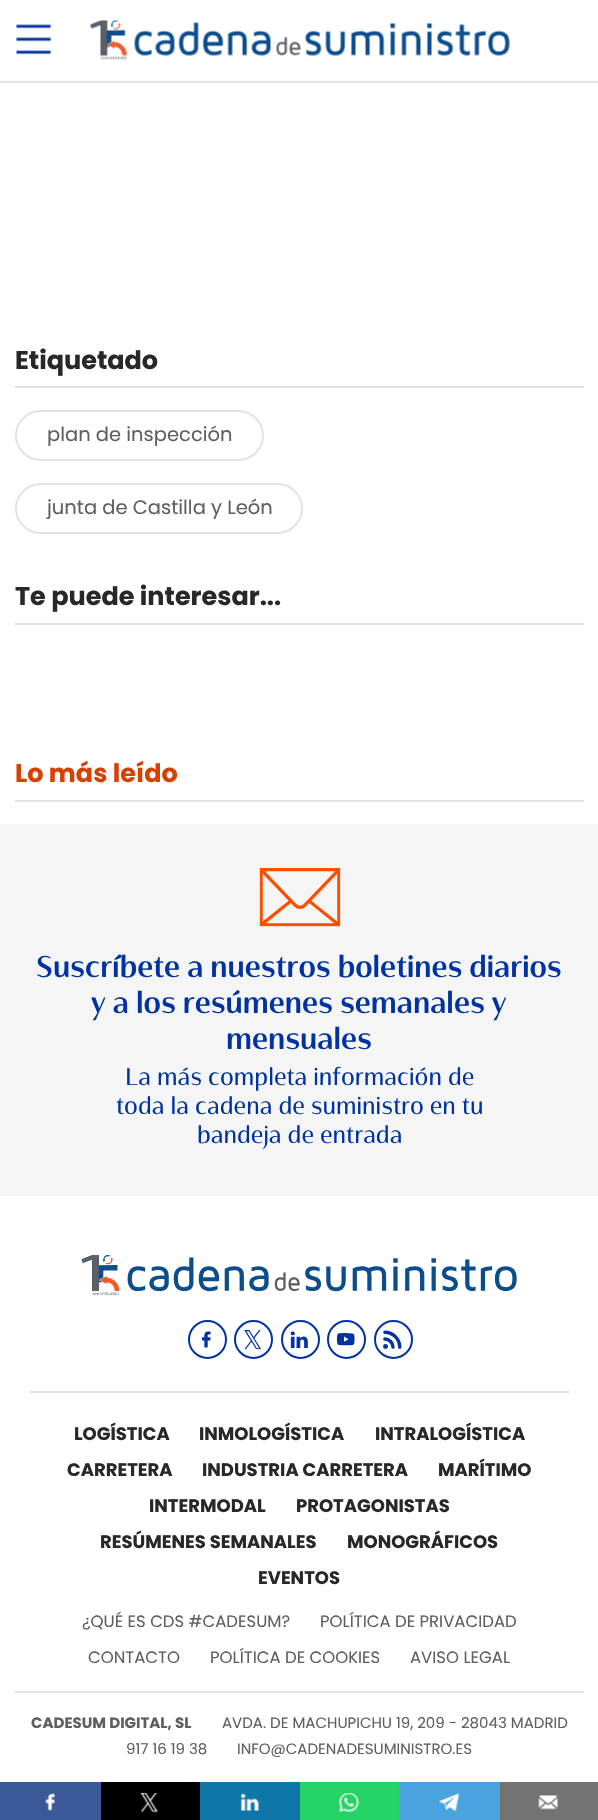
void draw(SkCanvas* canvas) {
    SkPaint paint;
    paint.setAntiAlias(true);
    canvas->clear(0xFFFFFFFF);
    paint.setColor(0xFFE3E3E3);
    canvas->drawRect(SkRect::MakeXYWH(0, 81, 598, 2), paint);
    canvas->drawImageRect(SkImages::DeferredFromEncodedData(SkData::MakeFromFileName("img1.png")), SkRect::MakeXYWH(90, 20, 420, 40), SkSamplingOptions());
    canvas->drawImageRect(SkImages::DeferredFromEncodedData(SkData::MakeFromFileName("img2.png")), SkRect::MakeXYWH(16, 24, 36, 31), SkSamplingOptions());
    canvas->drawRect(SkRect::MakeXYWH(15, 386, 569, 2), paint);
    SkFont font1(fontMgr->matchFamilyStyle("Poppins", SkFontStyle::Bold()), 25.5f);
    font1.setSubpixel(true);
    paint.setColor(0xFF282828);
    canvas->drawString("Etiquetado", 15, 369, font1, paint);
    paint.setStyle(SkPaint::kStroke_Style);
    paint.setStrokeWidth(2);
    paint.setColor(0xFFE3E3E3);
    canvas->drawRoundRect(SkRect::MakeXYWH(16, 411, 247, 49), 24.5f, 24.5f, paint);
    SkFont font2(fontMgr->matchFamilyStyle("Poppins", SkFontStyle::Normal()), 19.5f);
    font2.setSubpixel(true);
    paint.setStyle(SkPaint::kFill_Style);
    paint.setColor(0xFF5F5F5F);
    canvas->drawString("plan de inspección", 47, 441, font2, paint);
    paint.setStyle(SkPaint::kStroke_Style);
    paint.setColor(0xFFE3E3E3);
    canvas->drawRoundRect(SkRect::MakeXYWH(16, 484, 286, 49), 24.5f, 24.5f, paint);
    paint.setStyle(SkPaint::kFill_Style);
    paint.setColor(0xFF5F5F5F);
    canvas->drawString("junta de Castilla y León", 47, 514, font2, paint);
    paint.setColor(0xFF3B5998);
    canvas->drawRect(SkRect::MakeXYWH(0, 1782, 101, 38), paint);
    canvas->drawImageRect(SkImages::DeferredFromEncodedData(SkData::MakeFromFileName("img3.png")), SkRect::MakeXYWH(45, 1793, 11, 18), SkSamplingOptions());
    paint.setColor(0xFF000000);
    canvas->drawRect(SkRect::MakeXYWH(101, 1782, 99, 38), paint);
    canvas->drawImageRect(SkImages::DeferredFromEncodedData(SkData::MakeFromFileName("img4.png")), SkRect::MakeXYWH(140, 1793, 18, 20), SkSamplingOptions());
    paint.setColor(0xFF0E76A8);
    canvas->drawRect(SkRect::MakeXYWH(200, 1782, 100, 38), paint);
    canvas->drawImageRect(SkImages::DeferredFromEncodedData(SkData::MakeFromFileName("img5.png")), SkRect::MakeXYWH(240, 1793, 19, 18), SkSamplingOptions());
    paint.setColor(0xFF25D366);
    canvas->drawRect(SkRect::MakeXYWH(300, 1782, 99, 38), paint);
    canvas->drawImageRect(SkImages::DeferredFromEncodedData(SkData::MakeFromFileName("img6.png")), SkRect::MakeXYWH(339, 1793, 20, 20), SkSamplingOptions());
    paint.setColor(0xFF48A3DF);
    canvas->drawRect(SkRect::MakeXYWH(399, 1782, 101, 38), paint);
    canvas->drawImageRect(SkImages::DeferredFromEncodedData(SkData::MakeFromFileName("img7.png")), SkRect::MakeXYWH(439, 1793, 21, 19), SkSamplingOptions());
    paint.setColor(0xFF737373);
    canvas->drawRect(SkRect::MakeXYWH(500, 1782, 98, 38), paint);
    canvas->drawImageRect(SkImages::DeferredFromEncodedData(SkData::MakeFromFileName("img8.png")), SkRect::MakeXYWH(538, 1795, 20, 15), SkSamplingOptions());
    paint.setColor(0xFFE3E3E3);
    canvas->drawRect(SkRect::MakeXYWH(15, 623, 569, 2), paint);
    paint.setColor(0xFF282828);
    canvas->drawString("Te puede interesar...", 15, 605, font1, paint);
    paint.setColor(0xFFE3E3E3);
    canvas->drawRect(SkRect::MakeXYWH(15, 800, 569, 2), paint);
    paint.setColor(0xFFD64000);
    canvas->drawString("Lo más leído", 15, 782, font1, paint);
    paint.setColor(0xFFF5F5F5);
    canvas->drawRect(SkRect::MakeXYWH(0, 824, 598, 372), paint);
    canvas->drawImageRect(SkImages::DeferredFromEncodedData(SkData::MakeFromFileName("img9.png")), SkRect::MakeXYWH(259, 868, 82, 59), SkSamplingOptions());
    SkFont font3(fontMgr->matchFamilyStyle("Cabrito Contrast", SkFontStyle(800, SkFontStyle::kNormal_Width, SkFontStyle::kUpright_Slant)), 30);
    font3.setSubpixel(true);
    paint.setColor(0xFF0033A1);
    canvas->drawString("Suscríbete a nuestros boletines diarios", 36, 977, font3, paint);
    canvas->drawString("y a los resúmenes semanales y", 91, 1013, font3, paint);
    canvas->drawString("mensuales", 226, 1049, font3, paint);
    SkFont font4(fontMgr->matchFamilyStyle("Cabrito Contrast", SkFontStyle(600, SkFontStyle::kNormal_Width, SkFontStyle::kUpright_Slant)), 24);
    font4.setSubpixel(true);
    canvas->drawString("La más completa información de", 125, 1085, font4, paint);
    canvas->drawString("toda la cadena de suministro en tu", 116, 1114, font4, paint);
    canvas->drawString("bandeja de entrada", 197, 1143, font4, paint);
    canvas->drawImageRect(SkImages::DeferredFromEncodedData(SkData::MakeFromFileName("img10.png")), SkRect::MakeXYWH(81, 1255, 436, 41), SkSamplingOptions());
    paint.setStyle(SkPaint::kStroke_Style);
    canvas->drawCircle(207.5f, 1339.5f, 18.5f, paint);
    canvas->drawImageRect(SkImages::DeferredFromEncodedData(SkData::MakeFromFileName("img11.png")), SkRect::MakeXYWH(201, 1331, 10, 17), SkSamplingOptions());
    canvas->drawCircle(253.5f, 1339.5f, 18.5f, paint);
    canvas->drawImageRect(SkImages::DeferredFromEncodedData(SkData::MakeFromFileName("img12.png")), SkRect::MakeXYWH(244, 1330, 18, 20), SkSamplingOptions());
    canvas->drawCircle(300.5f, 1339.5f, 18.5f, paint);
    canvas->drawImageRect(SkImages::DeferredFromEncodedData(SkData::MakeFromFileName("img13.png")), SkRect::MakeXYWH(290, 1331, 18, 17), SkSamplingOptions());
    canvas->drawCircle(346.5f, 1339.5f, 18.5f, paint);
    canvas->drawImageRect(SkImages::DeferredFromEncodedData(SkData::MakeFromFileName("img14.png")), SkRect::MakeXYWH(336, 1333, 19, 13), SkSamplingOptions());
    canvas->drawCircle(393.5f, 1339.5f, 18.5f, paint);
    canvas->drawImageRect(SkImages::DeferredFromEncodedData(SkData::MakeFromFileName("img15.png")), SkRect::MakeXYWH(383, 1330, 19, 19), SkSamplingOptions());
    paint.setStyle(SkPaint::kFill_Style);
    paint.setColor(0xFFE3E3E3);
    canvas->drawRect(SkRect::MakeXYWH(30, 1391, 539, 2), paint);
    SkFont font5(fontMgr->matchFamilyStyle("Poppins", SkFontStyle::Bold()), 18);
    font5.setSubpixel(true);
    paint.setColor(0xFF282828);
    canvas->drawString("LOGÍSTICA", 74, 1440, font5, paint);
    canvas->drawString("INMOLOGÍSTICA", 199, 1440, font5, paint);
    canvas->drawString("INTRALOGÍSTICA", 375, 1440, font5, paint);
    canvas->drawString("CARRETERA", 67, 1476, font5, paint);
    canvas->drawString("INDUSTRIA CARRETERA", 202, 1476, font5, paint);
    canvas->drawString("MARÍTIMO", 438, 1476, font5, paint);
    canvas->drawString("INTERMODAL", 149, 1512, font5, paint);
    canvas->drawString("PROTAGONISTAS", 296, 1512, font5, paint);
    canvas->drawString("RESÚMENES SEMANALES", 100, 1548, font5, paint);
    canvas->drawString("MONOGRÁFICOS", 347, 1548, font5, paint);
    canvas->drawString("EVENTOS", 258, 1584, font5, paint);
    SkFont font6(fontMgr->matchFamilyStyle("Poppins", SkFontStyle::Normal()), 16.5f);
    font6.setSubpixel(true);
    paint.setColor(0xFF5F5F5F);
    canvas->drawString("¿QUÉ ES CDS #CADESUM?", 82, 1627, font6, paint);
    canvas->drawString("POLÍTICA DE PRIVACIDAD", 320, 1627, font6, paint);
    canvas->drawString("CONTACTO", 88, 1663, font6, paint);
    canvas->drawString("POLÍTICA DE COOKIES", 210, 1663, font6, paint);
    canvas->drawString("AVISO LEGAL", 410, 1663, font6, paint);
    paint.setColor(0xFFE3E3E3);
    canvas->drawRect(SkRect::MakeXYWH(15, 1691, 569, 2), paint);
    SkFont font7(fontMgr->matchFamilyStyle("Poppins", SkFontStyle::Bold()), 15);
    font7.setSubpixel(true);
    paint.setColor(0xFF5F5F5F);
    canvas->drawString("CADESUM DIGITAL, SL", 31, 1728, font7, paint);
    SkFont font8(fontMgr->matchFamilyStyle("Poppins", SkFontStyle::Normal()), 15);
    font8.setSubpixel(true);
    canvas->drawString("AVDA. DE MACHUPICHU 19, 209 - 28043 MADRID", 222, 1728, font8, paint);
    canvas->drawString("917 16 19 38", 126, 1754, font8, paint);
    canvas->drawString("INFO@CADENADESUMINISTRO.ES", 237, 1754, font8, paint);
}
